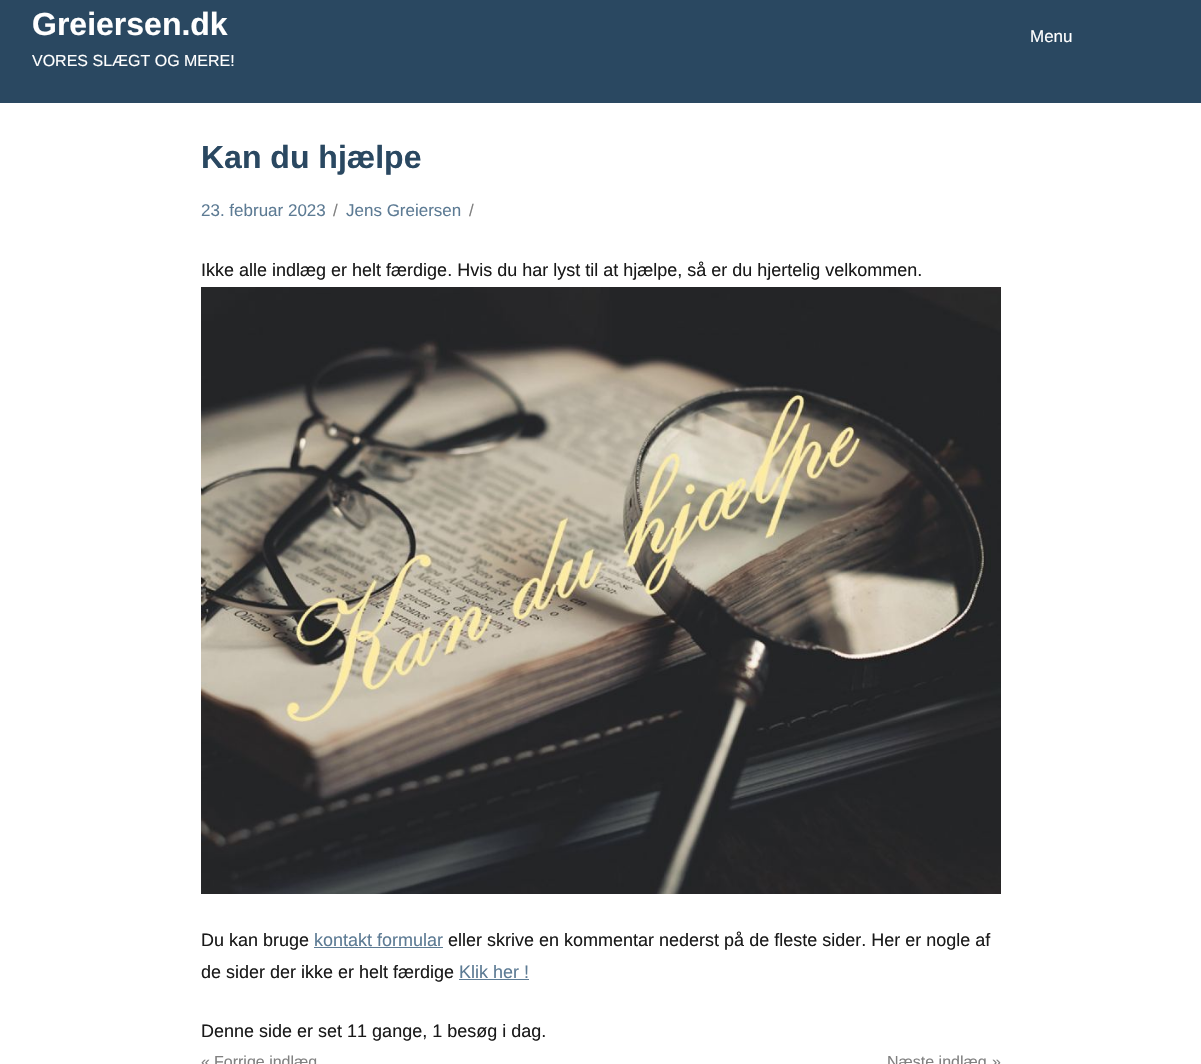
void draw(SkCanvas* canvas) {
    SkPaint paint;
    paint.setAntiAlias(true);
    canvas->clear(0xFF2A4861);
    SkFont font1(fontMgr->matchFamilyStyle("Liberation Sans", SkFontStyle::Bold()), 32);
    font1.setSubpixel(true);
    paint.setColor(0xFFFFFFFF);
    canvas->drawString("Greiersen.dk", 32, 35, font1, paint);
    SkFont font2(fontMgr->matchFamilyStyle("Liberation Sans", SkFontStyle::Normal()), 16);
    font2.setSubpixel(true);
    canvas->drawString("VORES SLÆGT OG MERE!", 32, 66, font2, paint);
    SkFont font3(fontMgr->matchFamilyStyle("Liberation Sans", SkFontStyle::Normal()), 17);
    font3.setSubpixel(true);
    canvas->drawString("Menu", 1030, 42, font3, paint);
    canvas->drawRect(SkRect::MakeXYWH(0, 103, 1201, 961), paint);
    paint.setColor(0xFF2A4861);
    canvas->drawString("Kan du hjælpe", 201, 168, font1, paint);
    paint.setColor(0xFF5D7B94);
    canvas->drawString("23. februar 2023", 201, 216, font3, paint);
    paint.setColor(0xFF808080);
    canvas->drawString("/", 333, 216, font3, paint);
    paint.setColor(0xFF5D7B94);
    canvas->drawString("Jens Greiersen", 346, 216, font3, paint);
    paint.setColor(0xFF808080);
    canvas->drawString("/", 469, 216, font3, paint);
    SkFont font4(fontMgr->matchFamilyStyle("Liberation Sans", SkFontStyle::Normal()), 18);
    font4.setSubpixel(true);
    paint.setColor(0xFF1A1A1A);
    canvas->drawString("Ikke alle indlæg er helt færdige. Hvis du har lyst til at hjælpe, så er du hjertelig velkommen.", 201, 276, font4, paint);
    canvas->drawImageRect(SkImages::DeferredFromEncodedData(SkData::MakeFromFileName("img1.png")), SkRect::MakeXYWH(201, 287, 800, 607), SkSamplingOptions());
    canvas->drawString("Du kan bruge", 201, 946, font4, paint);
    paint.setColor(0xFF5D7B94);
    canvas->drawString("kontakt formular", 314, 946, font4, paint);
    canvas->drawRect(SkRect::MakeXYWH(314, 947, 129, 1), paint);
    paint.setColor(0xFF1A1A1A);
    canvas->drawString("eller skrive en kommentar nederst på de fleste sider. Her er nogle af", 448, 946, font4, paint);
    canvas->drawString("de sider der ikke er helt færdige", 201, 978, font4, paint);
    paint.setColor(0xFF5D7B94);
    canvas->drawString("Klik her !", 459, 978, font4, paint);
    canvas->drawRect(SkRect::MakeXYWH(459, 979, 70, 1), paint);
    paint.setColor(0xFF1A1A1A);
    canvas->drawString("Denne side er set 11 gange, 1 besøg i dag.", 201, 1037, font4, paint);
    paint.setColor(0xFF808080);
    canvas->drawString("«", 201, 1067, font2, paint);
    canvas->drawString("Forrige indlæg", 214, 1067, font2, paint);
    canvas->drawString("Næste indlæg", 887, 1067, font2, paint);
    canvas->drawString("»", 992, 1067, font2, paint);
}
